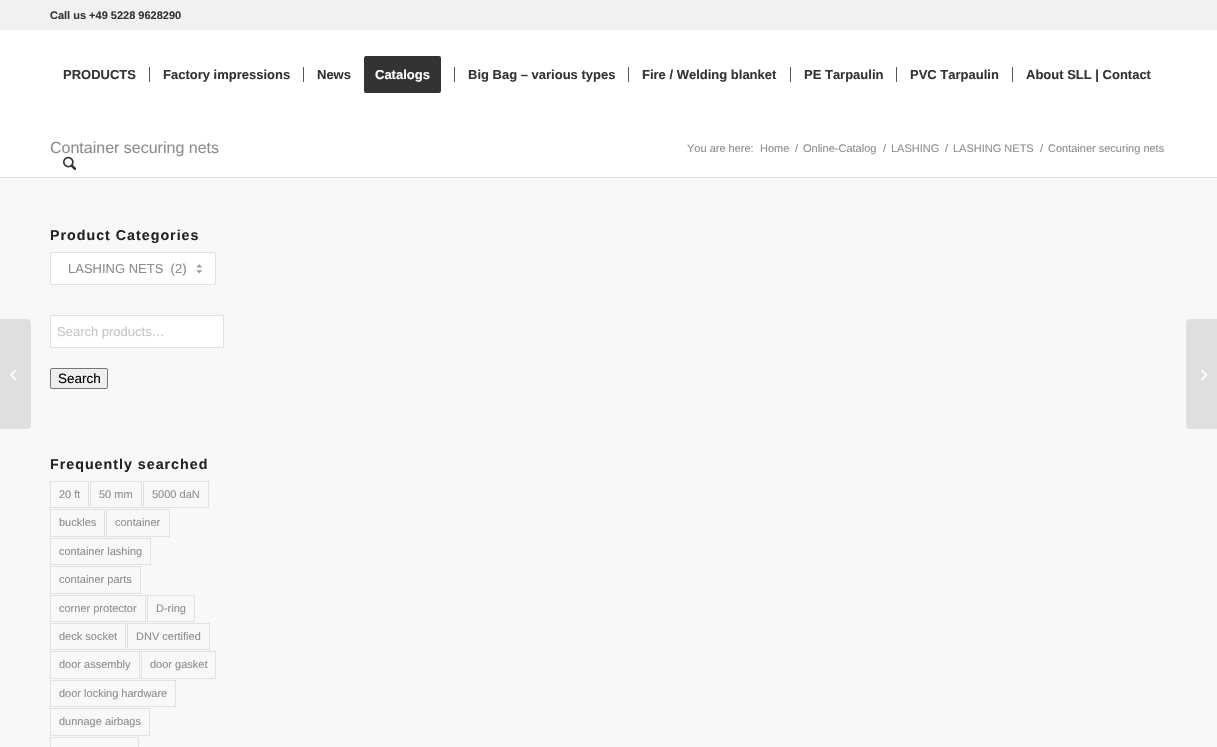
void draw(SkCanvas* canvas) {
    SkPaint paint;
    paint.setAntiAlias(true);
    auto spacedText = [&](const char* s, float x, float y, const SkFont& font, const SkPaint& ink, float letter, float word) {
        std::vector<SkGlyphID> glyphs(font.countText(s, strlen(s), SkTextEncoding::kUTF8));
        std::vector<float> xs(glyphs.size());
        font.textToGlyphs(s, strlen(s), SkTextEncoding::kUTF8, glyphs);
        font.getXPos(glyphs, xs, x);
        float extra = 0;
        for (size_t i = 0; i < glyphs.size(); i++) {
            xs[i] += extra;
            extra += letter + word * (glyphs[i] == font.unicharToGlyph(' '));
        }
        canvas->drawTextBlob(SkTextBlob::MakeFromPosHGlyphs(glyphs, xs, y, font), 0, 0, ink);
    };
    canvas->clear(0xFFFFFFFF);
    paint.setColor(0xFFF1F1F1);
    canvas->drawRect(SkRect::MakeXYWH(0, 0, 1217, 30), paint);
    SkFont font1(fontMgr->matchFamilyStyle("Liberation Sans", SkFontStyle::Bold()), 11);
    font1.setSubpixel(true);
    paint.setColor(0xFF333333);
    canvas->drawString("Call us +49 5228 9628290", 50, 19, font1, paint);
    SkFont font2(fontMgr->matchFamilyStyle("Liberation Sans", SkFontStyle::Bold()), 13);
    font2.setSubpixel(true);
    canvas->drawString("PRODUCTS", 63, 79, font2, paint);
    canvas->drawString("Factory impressions", 163, 79, font2, paint);
    paint.setColor(0xFF555555);
    canvas->drawRect(SkRect::MakeXYWH(149, 67, 1, 15), paint);
    paint.setColor(0xFF333333);
    canvas->drawString("News", 317, 79, font2, paint);
    paint.setColor(0xFF555555);
    canvas->drawRect(SkRect::MakeXYWH(303, 67, 1, 15), paint);
    paint.setColor(0xFF333333);
    canvas->drawRoundRect(SkRect::MakeXYWH(365, 57, 75, 35), 1, 1, paint);
    paint.setStyle(SkPaint::kStroke_Style);
    paint.setStrokeWidth(2);
    canvas->drawRoundRect(SkRect::MakeXYWH(365, 57, 75, 35), 1, 1, paint);
    paint.setStyle(SkPaint::kFill_Style);
    paint.setColor(0xFFFFFFFF);
    canvas->drawString("Catalogs", 375, 79, font2, paint);
    paint.setColor(0xFF333333);
    canvas->drawString("Big Bag – various types", 468, 79, font2, paint);
    paint.setColor(0xFF555555);
    canvas->drawRect(SkRect::MakeXYWH(454, 67, 1, 15), paint);
    paint.setColor(0xFF333333);
    canvas->drawString("Fire / Welding blanket", 642, 79, font2, paint);
    paint.setColor(0xFF555555);
    canvas->drawRect(SkRect::MakeXYWH(628, 67, 1, 15), paint);
    paint.setColor(0xFF333333);
    canvas->drawString("PE Tarpaulin", 804, 79, font2, paint);
    paint.setColor(0xFF555555);
    canvas->drawRect(SkRect::MakeXYWH(790, 67, 1, 15), paint);
    paint.setColor(0xFF333333);
    canvas->drawString("PVC Tarpaulin", 910, 79, font2, paint);
    paint.setColor(0xFF555555);
    canvas->drawRect(SkRect::MakeXYWH(896, 67, 1, 15), paint);
    paint.setColor(0xFF333333);
    canvas->drawString("About SLL | Contact", 1026, 79, font2, paint);
    paint.setColor(0xFF555555);
    canvas->drawRect(SkRect::MakeXYWH(1012, 67, 1, 15), paint);
    SkFont font3(fontMgr->matchFamilyStyle("Liberation Sans", SkFontStyle::Normal()), 16);
    font3.setSubpixel(true);
    paint.setColor(0xFF8D8D8D);
    canvas->drawString("Container securing nets", 50, 153, font3, paint);
    canvas->drawImageRect(SkImages::DeferredFromEncodedData(SkData::MakeFromFileName("img1.png")), SkRect::MakeXYWH(63, 156, 13, 15), SkSamplingOptions());
    paint.setColor(0xFFF8F8F8);
    canvas->drawRect(SkRect::MakeXYWH(0, 178, 1217, 569), paint);
    paint.setColor(0xFFDFDFDF);
    canvas->drawPath(SkPathBuilder().moveTo(0, 319).lineTo(27, 319).cubicTo(29, 319, 31, 321, 31, 323).lineTo(31, 425).cubicTo(31, 427, 29, 429, 27, 429).lineTo(0, 429).close().detach(), paint);
    canvas->drawImageRect(SkImages::DeferredFromEncodedData(SkData::MakeFromFileName("img2.png")), SkRect::MakeXYWH(10, 369, 6, 12), SkSamplingOptions());
    SkFont font4(fontMgr->matchFamilyStyle("Liberation Sans", SkFontStyle::Normal()), 11);
    font4.setSubpixel(true);
    paint.setColor(0xFF8D8D8D);
    canvas->drawString("You are here:", 687, 152, font4, paint);
    canvas->drawString("Home", 760, 152, font4, paint);
    canvas->drawString("/", 795, 152, font4, paint);
    canvas->drawString("Online-Catalog", 803, 152, font4, paint);
    canvas->drawString("/", 883, 152, font4, paint);
    canvas->drawString("LASHING", 891, 152, font4, paint);
    canvas->drawString("/", 945, 152, font4, paint);
    canvas->drawString("LASHING NETS", 953, 152, font4, paint);
    canvas->drawString("/", 1040, 152, font4, paint);
    canvas->drawString("Container securing nets", 1048, 152, font4, paint);
    paint.setColor(0xFFE1E1E1);
    canvas->drawRect(SkRect::MakeXYWH(0, 177, 1217, 1), paint);
    SkFont font5(fontMgr->matchFamilyStyle("Liberation Sans", SkFontStyle::Bold()), 14.25f);
    font5.setSubpixel(true);
    paint.setColor(0xFF222222);
    spacedText("Product Categories", 50, 240, font5, paint, 1, 0);
    paint.setColor(0xFFFFFFFF);
    canvas->drawRoundRect(SkRect::MakeXYWH(50, 252, 166, 33), 2, 2, paint);
    canvas->drawImageRect(SkImages::DeferredFromEncodedData(SkData::MakeFromFileName("img3.png")), SkRect::MakeXYWH(185, 262, 18, 13), SkSamplingOptions());
    paint.setStyle(SkPaint::kStroke_Style);
    paint.setStrokeWidth(1);
    paint.setColor(0xFFE1E1E1);
    canvas->drawRoundRect(SkRect::MakeXYWH(50.5f, 252.5f, 165, 32), 1.5f, 1.5f, paint);
    SkFont font6(fontMgr->matchFamilyStyle("Liberation Sans", SkFontStyle::Normal()), 13);
    font6.setSubpixel(true);
    paint.setStyle(SkPaint::kFill_Style);
    paint.setColor(0xFF8D8D8D);
    canvas->drawString("LASHING NETS  (2)", 68, 273, font6, paint);
    paint.setColor(0xFFFFFFFF);
    canvas->drawRect(SkRect::MakeXYWH(50.5f, 315.5f, 173, 32), paint);
    paint.setStyle(SkPaint::kStroke_Style);
    paint.setColor(0xFFE1E1E1);
    canvas->drawRect(SkRect::MakeXYWH(50.5f, 315.5f, 173, 32), paint);
    paint.setStyle(SkPaint::kFill_Style);
    paint.setColor(0xFFC6C6C6);
    canvas->drawString("Search products…", 57, 336, font6, paint);
    paint.setColor(0xFFEFEFEF);
    canvas->drawRoundRect(SkRect::MakeXYWH(50.5f, 368.5f, 57, 20), 1.5f, 1.5f, paint);
    paint.setStyle(SkPaint::kStroke_Style);
    paint.setColor(0xFF767676);
    canvas->drawRoundRect(SkRect::MakeXYWH(50.5f, 368.5f, 57, 20), 1.5f, 1.5f, paint);
    SkFont font7(fontMgr->matchFamilyStyle("Liberation Sans", SkFontStyle::Normal()), 13.5f);
    font7.setSubpixel(true);
    paint.setStyle(SkPaint::kFill_Style);
    paint.setColor(0xFF000000);
    canvas->drawString("Search", 58, 383, font7, paint);
    paint.setColor(0xFF222222);
    spacedText("Frequently searched", 50, 469, font5, paint, 1, 0);
    paint.setStyle(SkPaint::kStroke_Style);
    paint.setColor(0xFFE1E1E1);
    canvas->drawRect(SkRect::MakeXYWH(50.5f, 481.5f, 38, 26), paint);
    paint.setStyle(SkPaint::kFill_Style);
    paint.setColor(0xFF8D8D8D);
    canvas->drawString("20 ft", 59, 498, font4, paint);
    paint.setStyle(SkPaint::kStroke_Style);
    paint.setColor(0xFFE1E1E1);
    canvas->drawRect(SkRect::MakeXYWH(90.5f, 481.5f, 51, 26), paint);
    paint.setStyle(SkPaint::kFill_Style);
    paint.setColor(0xFF8D8D8D);
    canvas->drawString("50 mm", 99, 498, font4, paint);
    paint.setStyle(SkPaint::kStroke_Style);
    paint.setColor(0xFFE1E1E1);
    canvas->drawRect(SkRect::MakeXYWH(143.5f, 481.5f, 65, 26), paint);
    paint.setStyle(SkPaint::kFill_Style);
    paint.setColor(0xFF8D8D8D);
    canvas->drawString("5000 daN", 152, 498, font4, paint);
    paint.setStyle(SkPaint::kStroke_Style);
    paint.setColor(0xFFE1E1E1);
    canvas->drawRect(SkRect::MakeXYWH(50.5f, 509.5f, 54, 27), paint);
    paint.setStyle(SkPaint::kFill_Style);
    paint.setColor(0xFF8D8D8D);
    canvas->drawString("buckles", 59, 526, font4, paint);
    paint.setStyle(SkPaint::kStroke_Style);
    paint.setColor(0xFFE1E1E1);
    canvas->drawRect(SkRect::MakeXYWH(106.5f, 509.5f, 63, 27), paint);
    paint.setStyle(SkPaint::kFill_Style);
    paint.setColor(0xFF8D8D8D);
    canvas->drawString("container", 115, 526, font4, paint);
    paint.setStyle(SkPaint::kStroke_Style);
    paint.setColor(0xFFE1E1E1);
    canvas->drawRect(SkRect::MakeXYWH(50.5f, 538.5f, 100, 26), paint);
    paint.setStyle(SkPaint::kFill_Style);
    paint.setColor(0xFF8D8D8D);
    canvas->drawString("container lashing", 59, 555, font4, paint);
    paint.setStyle(SkPaint::kStroke_Style);
    paint.setColor(0xFFE1E1E1);
    canvas->drawRect(SkRect::MakeXYWH(50.5f, 566.5f, 90, 27), paint);
    paint.setStyle(SkPaint::kFill_Style);
    paint.setColor(0xFF8D8D8D);
    canvas->drawString("container parts", 59, 583, font4, paint);
    paint.setStyle(SkPaint::kStroke_Style);
    paint.setColor(0xFFE1E1E1);
    canvas->drawRect(SkRect::MakeXYWH(50.5f, 595.5f, 95, 26), paint);
    paint.setStyle(SkPaint::kFill_Style);
    paint.setColor(0xFF8D8D8D);
    canvas->drawString("corner protector", 59, 612, font4, paint);
    paint.setStyle(SkPaint::kStroke_Style);
    paint.setColor(0xFFE1E1E1);
    canvas->drawRect(SkRect::MakeXYWH(147.5f, 595.5f, 47, 26), paint);
    paint.setStyle(SkPaint::kFill_Style);
    paint.setColor(0xFF8D8D8D);
    canvas->drawString("D-ring", 156, 612, font4, paint);
    paint.setStyle(SkPaint::kStroke_Style);
    paint.setColor(0xFFE1E1E1);
    canvas->drawRect(SkRect::MakeXYWH(50.5f, 623.5f, 75, 26), paint);
    paint.setStyle(SkPaint::kFill_Style);
    paint.setColor(0xFF8D8D8D);
    canvas->drawString("deck socket", 59, 640, font4, paint);
    paint.setStyle(SkPaint::kStroke_Style);
    paint.setColor(0xFFE1E1E1);
    canvas->drawRect(SkRect::MakeXYWH(127.5f, 623.5f, 82, 26), paint);
    paint.setStyle(SkPaint::kFill_Style);
    paint.setColor(0xFF8D8D8D);
    canvas->drawString("DNV certified", 136, 640, font4, paint);
    paint.setStyle(SkPaint::kStroke_Style);
    paint.setColor(0xFFE1E1E1);
    canvas->drawRect(SkRect::MakeXYWH(50.5f, 651.5f, 89, 27), paint);
    paint.setStyle(SkPaint::kFill_Style);
    paint.setColor(0xFF8D8D8D);
    canvas->drawString("door assembly", 59, 668, font4, paint);
    paint.setStyle(SkPaint::kStroke_Style);
    paint.setColor(0xFFE1E1E1);
    canvas->drawRect(SkRect::MakeXYWH(141.5f, 651.5f, 74, 27), paint);
    paint.setStyle(SkPaint::kFill_Style);
    paint.setColor(0xFF8D8D8D);
    canvas->drawString("door gasket", 150, 668, font4, paint);
    paint.setStyle(SkPaint::kStroke_Style);
    paint.setColor(0xFFE1E1E1);
    canvas->drawRect(SkRect::MakeXYWH(50.5f, 680.5f, 125, 26), paint);
    paint.setStyle(SkPaint::kFill_Style);
    paint.setColor(0xFF8D8D8D);
    canvas->drawString("door locking hardware", 59, 697, font4, paint);
    paint.setStyle(SkPaint::kStroke_Style);
    paint.setColor(0xFFE1E1E1);
    canvas->drawRect(SkRect::MakeXYWH(50.5f, 708.5f, 99, 27), paint);
    paint.setStyle(SkPaint::kFill_Style);
    paint.setColor(0xFF8D8D8D);
    canvas->drawString("dunnage airbags", 59, 725, font4, paint);
    paint.setStyle(SkPaint::kStroke_Style);
    paint.setColor(0xFFE1E1E1);
    canvas->drawRect(SkRect::MakeXYWH(50.5f, 737.5f, 88, 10), paint);
    paint.setStyle(SkPaint::kFill_Style);
    paint.setColor(0xFFDFDFDF);
    canvas->drawPath(SkPathBuilder().moveTo(1190, 319).lineTo(1217, 319).lineTo(1217, 429).lineTo(1190, 429).cubicTo(1188, 429, 1186, 427, 1186, 425).lineTo(1186, 323).cubicTo(1186, 321, 1188, 319, 1190, 319).close().detach(), paint);
    canvas->drawImageRect(SkImages::DeferredFromEncodedData(SkData::MakeFromFileName("img4.png")), SkRect::MakeXYWH(1201, 369, 6, 12), SkSamplingOptions());
}
